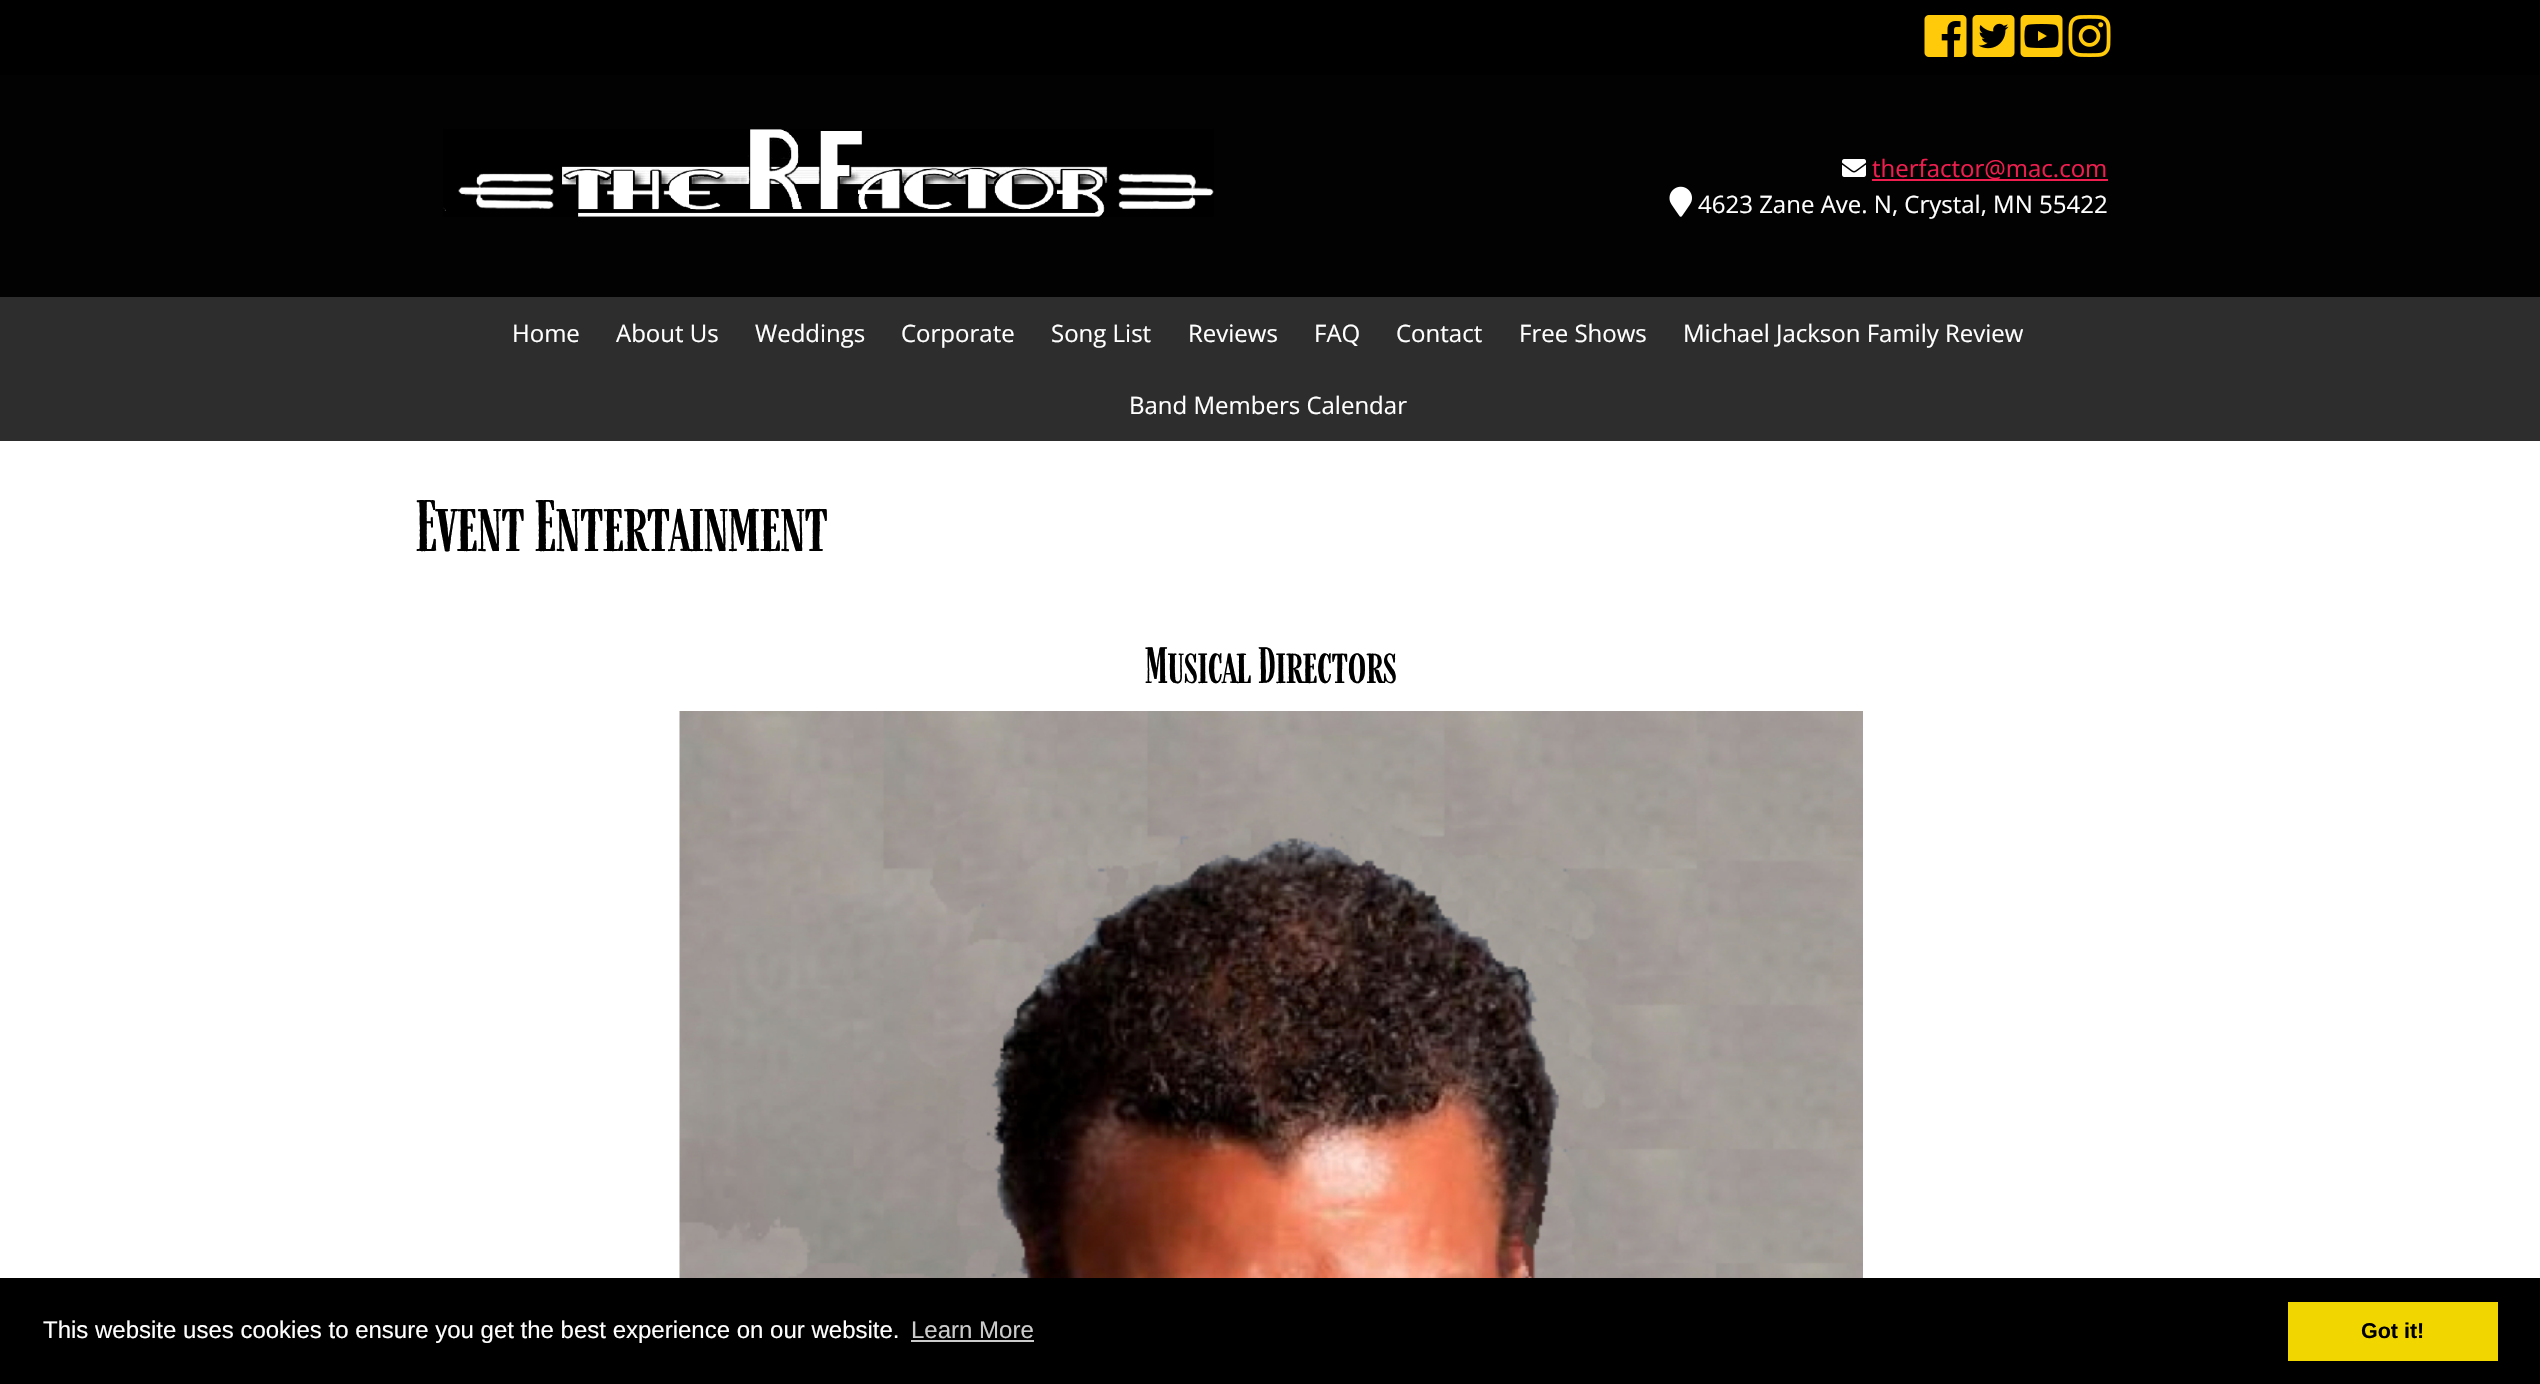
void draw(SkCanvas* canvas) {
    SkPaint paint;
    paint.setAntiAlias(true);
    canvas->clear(0xFFFFFFFF);
    paint.setColor(0xFF000000);
    canvas->drawRect(SkRect::MakeXYWH(0, 0, 2540, 75), paint);
    canvas->drawImageRect(SkImages::DeferredFromEncodedData(SkData::MakeFromFileName("img1.png")), SkRect::MakeXYWH(1924, 15, 43, 42), SkSamplingOptions());
    canvas->drawImageRect(SkImages::DeferredFromEncodedData(SkData::MakeFromFileName("img2.png")), SkRect::MakeXYWH(1972, 15, 43, 42), SkSamplingOptions());
    canvas->drawImageRect(SkImages::DeferredFromEncodedData(SkData::MakeFromFileName("img3.png")), SkRect::MakeXYWH(2020, 15, 43, 42), SkSamplingOptions());
    canvas->drawImageRect(SkImages::DeferredFromEncodedData(SkData::MakeFromFileName("img4.png")), SkRect::MakeXYWH(2068, 15, 43, 42), SkSamplingOptions());
    paint.setColor(0xFF020202);
    canvas->drawRect(SkRect::MakeXYWH(0, 75, 2540, 222), paint);
    canvas->drawImageRect(SkImages::DeferredFromEncodedData(SkData::MakeFromFileName("img5.png")), SkRect::MakeXYWH(443, 129, 771, 88), SkSamplingOptions());
    canvas->drawImageRect(SkImages::DeferredFromEncodedData(SkData::MakeFromFileName("img6.png")), SkRect::MakeXYWH(1842, 159, 24, 18), SkSamplingOptions());
    paint.setColor(0xFFF01D4F);
    canvas->drawRect(SkRect::MakeXYWH(1872, 179, 236, 2), paint);
    SkFont font1(fontMgr->matchFamilyStyle("Open Sans", SkFontStyle::Normal()), 24);
    font1.setSubpixel(true);
    canvas->drawString("therfactor@mac.com", 1872, 177, font1, paint);
    canvas->drawImageRect(SkImages::DeferredFromEncodedData(SkData::MakeFromFileName("img7.png")), SkRect::MakeXYWH(1669, 186, 23, 31), SkSamplingOptions());
    paint.setColor(0xFFFFFFFF);
    canvas->drawString("4623 Zane Ave. N, Crystal, MN 55422", 1698, 213, font1, paint);
    paint.setColor(0xFF2D2D2D);
    canvas->drawRect(SkRect::MakeXYWH(0, 297, 2540, 144), paint);
    paint.setColor(0xFFFFFFFF);
    canvas->drawString("Home", 512, 342, font1, paint);
    canvas->drawString("About Us", 616, 342, font1, paint);
    canvas->drawString("Weddings", 755, 342, font1, paint);
    canvas->drawString("Corporate", 901, 342, font1, paint);
    canvas->drawString("Song List", 1051, 342, font1, paint);
    canvas->drawString("Reviews", 1188, 342, font1, paint);
    canvas->drawString("FAQ", 1314, 342, font1, paint);
    canvas->drawString("Contact", 1396, 342, font1, paint);
    canvas->drawString("Free Shows", 1519, 342, font1, paint);
    canvas->drawString("Michael Jackson Family Review", 1683, 342, font1, paint);
    canvas->drawString("Band Members Calendar", 1129, 414, font1, paint);
    SkFont font2(fontMgr->matchFamilyStyle("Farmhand", SkFontStyle::Normal()), 60);
    font2.setSubpixel(true);
    paint.setColor(0xFF000000);
    canvas->drawString("Event Entertainment", 416, 551, font2, paint);
    SkFont font3(fontMgr->matchFamilyStyle("Farmhand", SkFontStyle::Normal()), 42);
    font3.setSubpixel(true);
    canvas->drawString("Musical Directors", 1145, 683, font3, paint);
    canvas->drawImageRect(SkImages::DeferredFromEncodedData(SkData::MakeFromFileName("img8.png")), SkRect::MakeXYWH(679, 711, 1184, 567), SkSamplingOptions());
    canvas->drawRect(SkRect::MakeXYWH(0, 1278, 2540, 106), paint);
    SkFont font4(fontMgr->matchFamilyStyle("Liberation Sans", SkFontStyle::Normal()), 24);
    font4.setSubpixel(true);
    paint.setColor(0xFFFFFFFF);
    canvas->drawString("This website uses cookies to ensure you get the best experience on our website.", 43, 1338, font4, paint);
    paint.setColor(0xFFCCCCCC);
    canvas->drawString("Learn More", 911, 1338, font4, paint);
    canvas->drawRect(SkRect::MakeXYWH(911, 1340, 123, 2), paint);
    paint.setColor(0xFFF1D600);
    canvas->drawRect(SkRect::MakeXYWH(2288, 1302, 210, 59), paint);
    SkFont font5(fontMgr->matchFamilyStyle("Liberation Sans", SkFontStyle::Bold()), 21.5f);
    font5.setSubpixel(true);
    paint.setColor(0xFF000000);
    canvas->drawString("Got it!", 2361, 1338, font5, paint);
}
